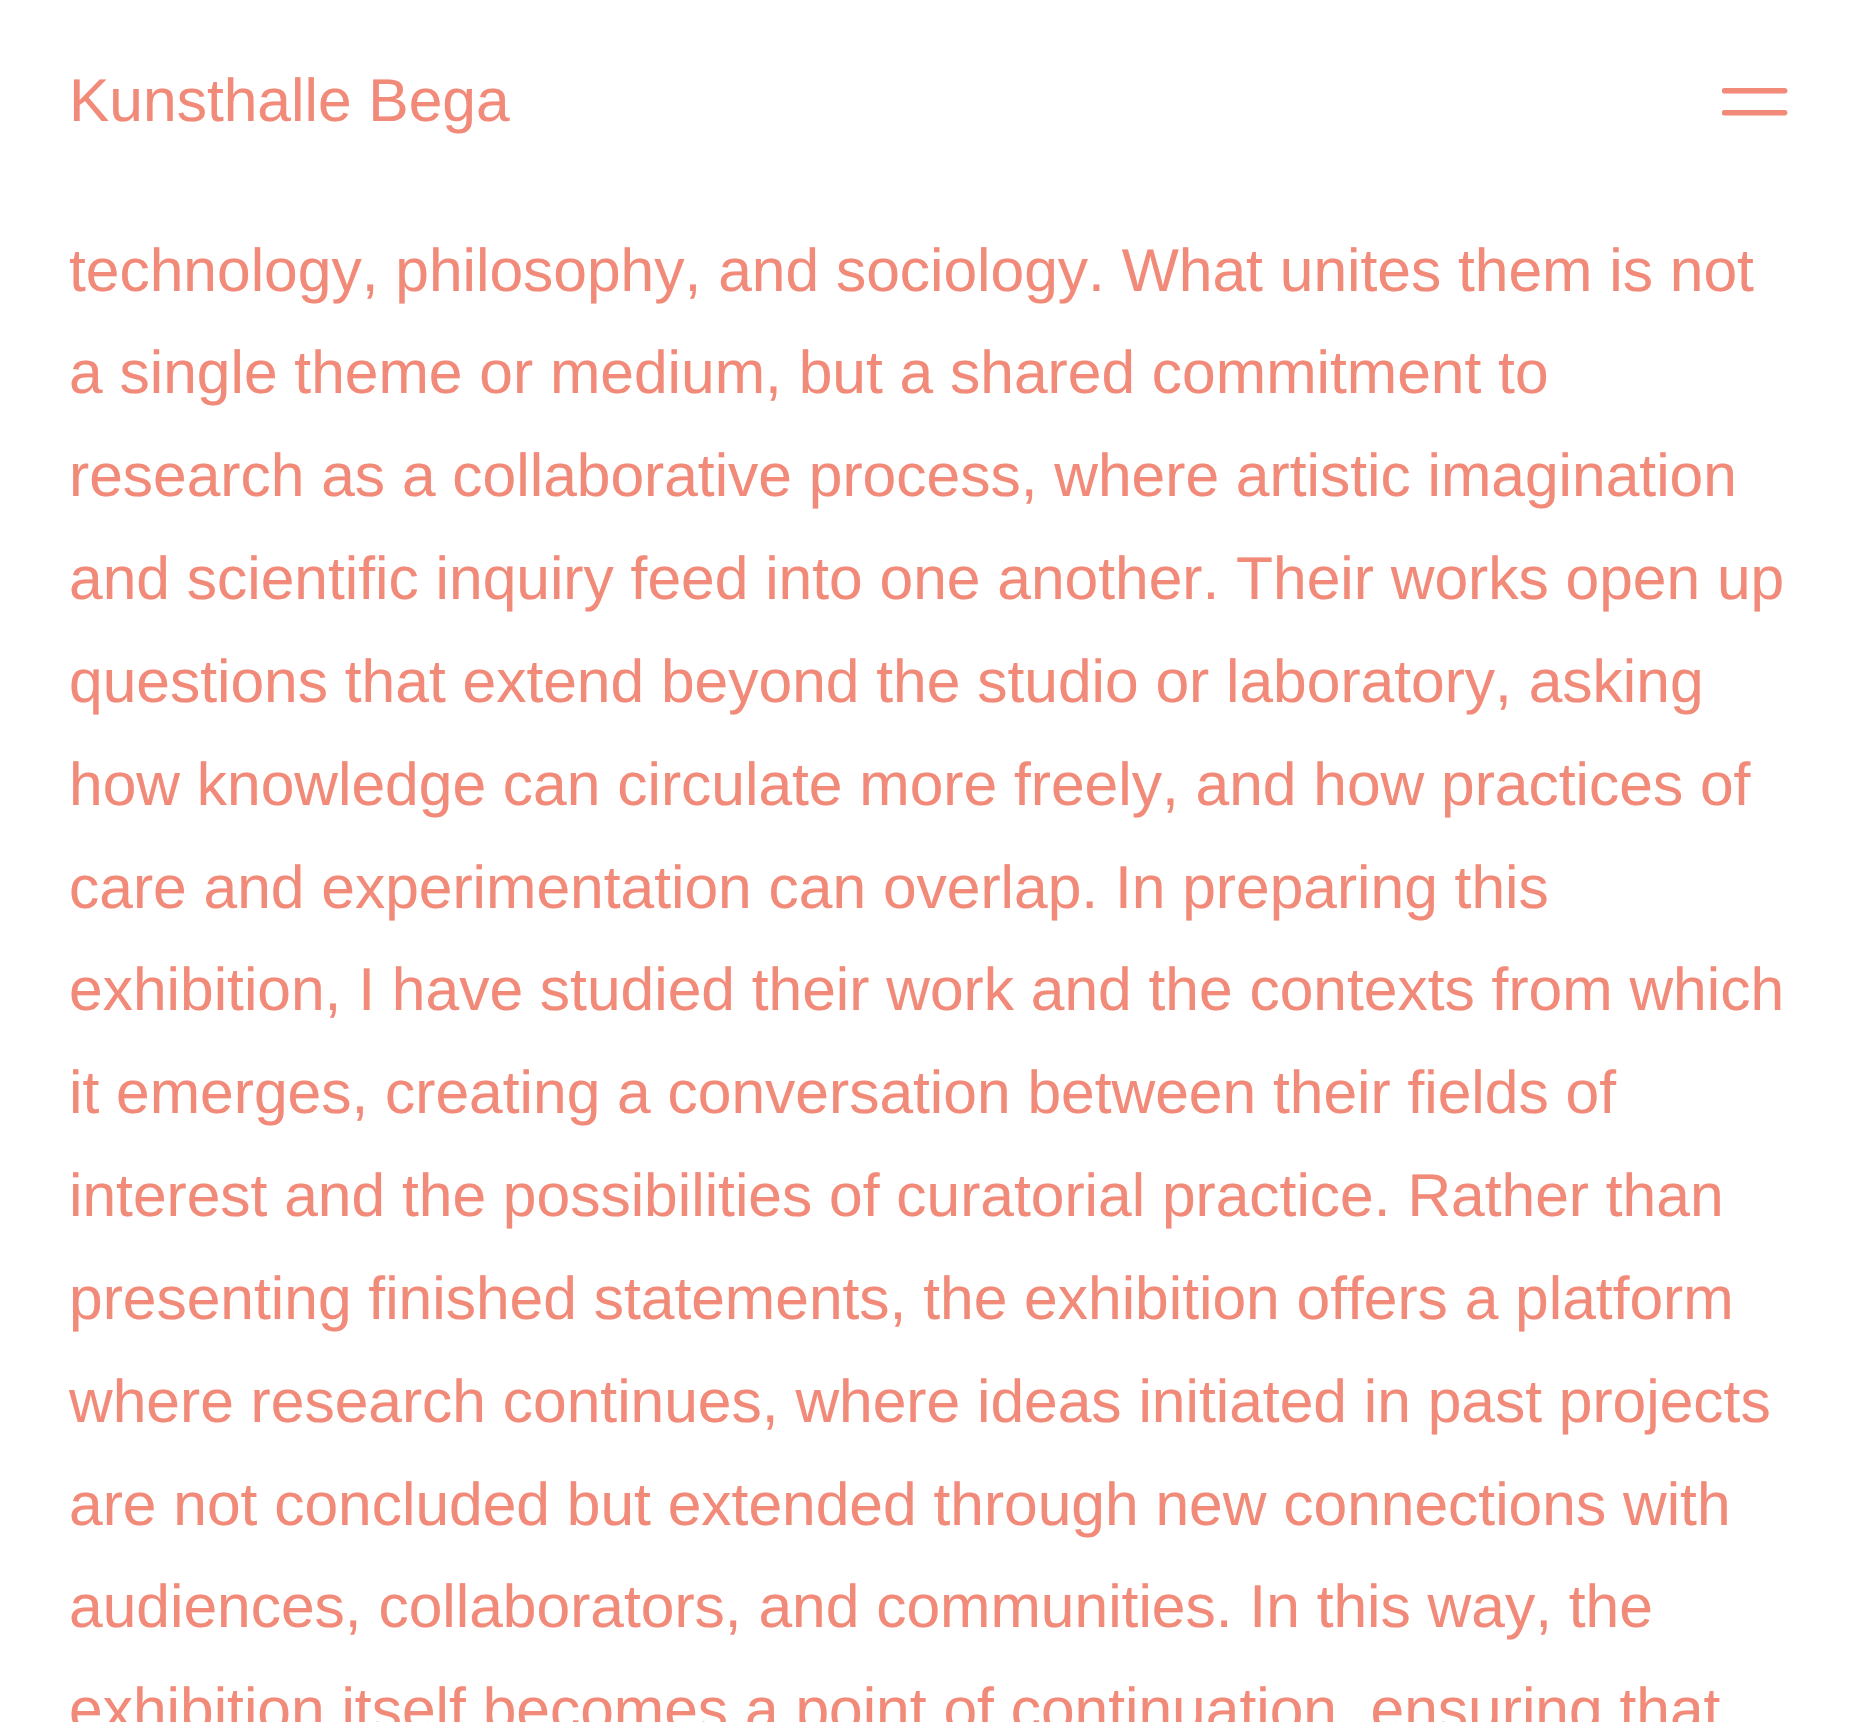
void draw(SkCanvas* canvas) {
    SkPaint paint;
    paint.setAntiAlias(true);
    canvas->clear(0xFFFFFFFF);
    SkFont font1(fontMgr->matchFamilyStyle("Liberation Sans", SkFontStyle::Normal()), 60.5f);
    font1.setSubpixel(true);
    paint.setColor(0xFFF28A79);
    canvas->drawString("Kunsthalle Bega", 69, 121, font1, paint);
    canvas->drawImageRect(SkImages::DeferredFromEncodedData(SkData::MakeFromFileName("img1.png")), SkRect::MakeXYWH(1722, 88, 66, 28), SkSamplingOptions());
    canvas->drawString("technology, philosophy, and sociology. What unites them is not", 69, 291, font1, paint);
    canvas->drawString("a single theme or medium, but a shared commitment to", 69, 393, font1, paint);
    canvas->drawString("research as a collaborative process, where artistic imagination", 69, 496, font1, paint);
    canvas->drawString("and scientific inquiry feed into one another. Their works open up", 69, 599, font1, paint);
    canvas->drawString("questions that extend beyond the studio or laboratory, asking", 69, 702, font1, paint);
    canvas->drawString("how knowledge can circulate more freely, and how practices of", 69, 805, font1, paint);
    canvas->drawString("care and experimentation can overlap. In preparing this", 69, 908, font1, paint);
    canvas->drawString("exhibition, I have studied their work and the contexts from which", 69, 1010, font1, paint);
    canvas->drawString("it emerges, creating a conversation between their fields of", 69, 1113, font1, paint);
    canvas->drawString("interest and the possibilities of curatorial practice. Rather than", 69, 1216, font1, paint);
    canvas->drawString("presenting finished statements, the exhibition offers a platform", 69, 1319, font1, paint);
    canvas->drawString("where research continues, where ideas initiated in past projects", 69, 1422, font1, paint);
    canvas->drawString("are not concluded but extended through new connections with", 69, 1525, font1, paint);
    canvas->drawString("audiences, collaborators, and communities. In this way, the", 69, 1627, font1, paint);
    canvas->drawString("exhibition itself becomes a point of continuation, ensuring that", 69, 1730, font1, paint);
}
